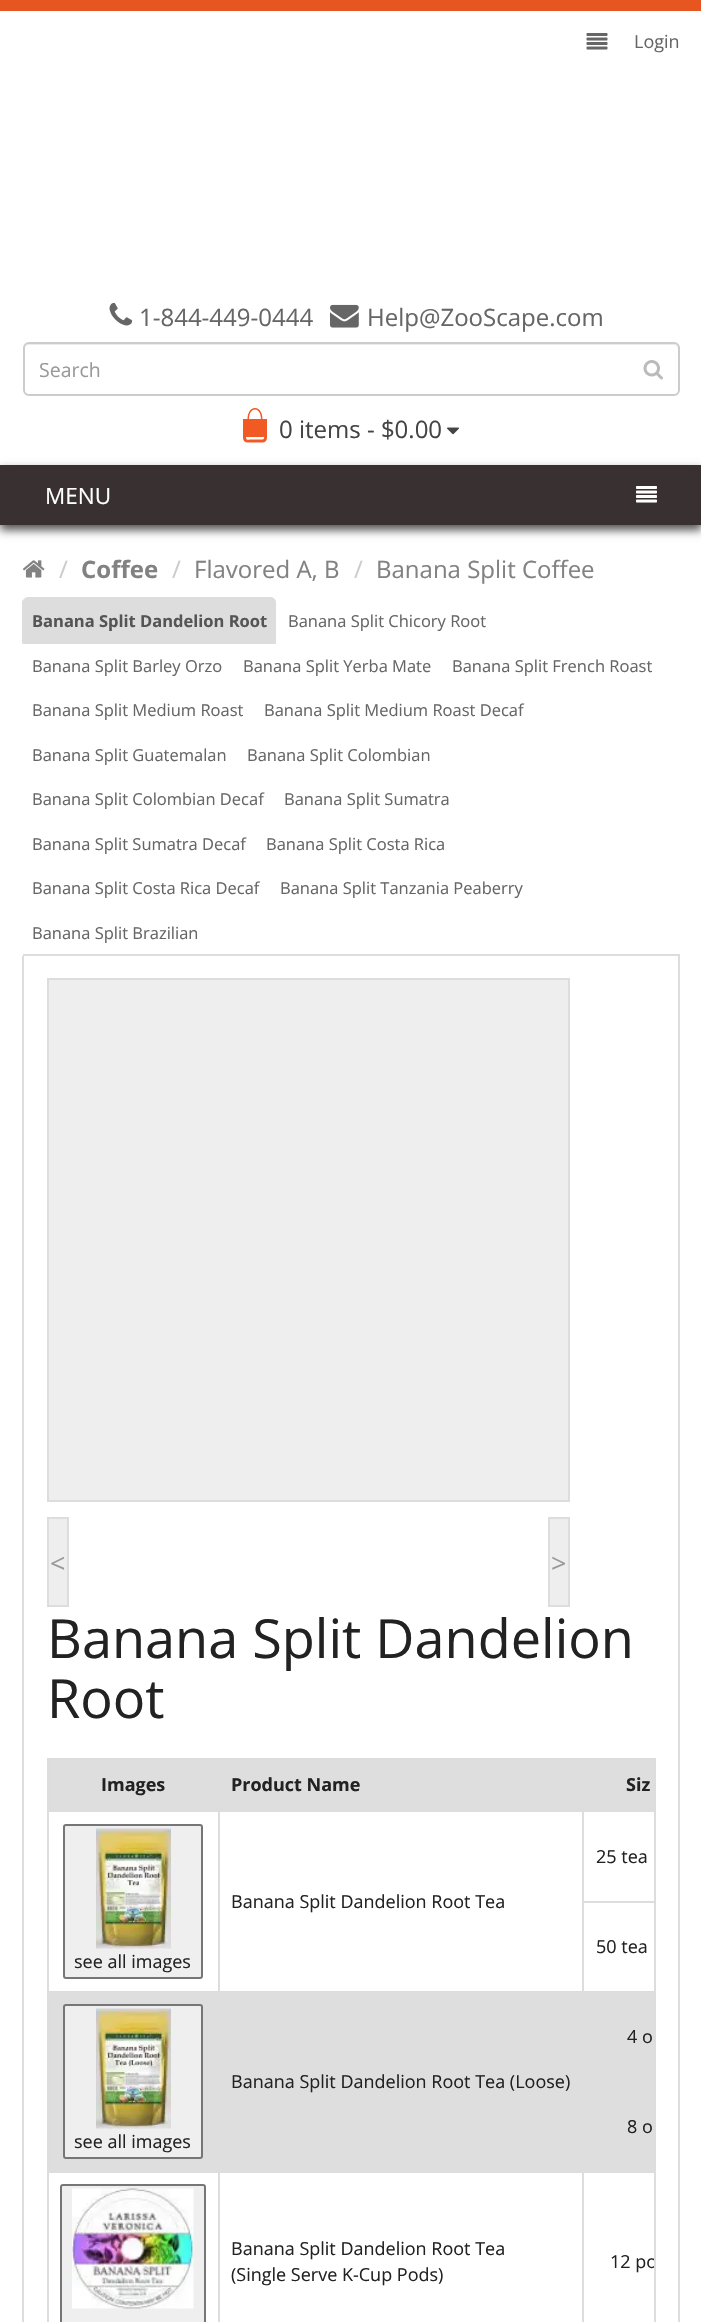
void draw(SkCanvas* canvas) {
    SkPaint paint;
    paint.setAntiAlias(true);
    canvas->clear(0xFFFFFFFF);
    paint.setColor(0xFFE75621);
    canvas->drawRect(SkRect::MakeXYWH(0, 0, 701, 11), paint);
    canvas->drawImageRect(SkImages::DeferredFromEncodedData(SkData::MakeFromFileName("img1.png")), SkRect::MakeXYWH(586, 33, 22, 17), SkSamplingOptions());
    SkFont font1(fontMgr->matchFamilyStyle("Open Sans", SkFontStyle::Normal()), 18);
    font1.setSubpixel(true);
    paint.setColor(0xFF666666);
    canvas->drawString("Login", 634, 48, font1, paint);
    canvas->drawImageRect(SkImages::DeferredFromEncodedData(SkData::MakeFromFileName("img2.png")), SkRect::MakeXYWH(109, 302, 24, 24), SkSamplingOptions());
    SkFont font2(fontMgr->matchFamilyStyle("Open Sans", SkFontStyle::Normal()), 24);
    font2.setSubpixel(true);
    canvas->drawString("1-844-449-0444", 139, 326, font2, paint);
    canvas->drawImageRect(SkImages::DeferredFromEncodedData(SkData::MakeFromFileName("img3.png")), SkRect::MakeXYWH(330, 304, 29, 24), SkSamplingOptions());
    canvas->drawString("Help@ZooScape.com", 367, 326, font2, paint);
    paint.setColor(0xFFECECEC);
    canvas->drawPath(SkPathBuilder().moveTo(28, 345).lineTo(674, 345).cubicTo(676, 345, 678, 347, 678, 350).lineTo(678, 349).cubicTo(678, 346, 676, 344, 673, 344).lineTo(29, 344).cubicTo(26, 344, 24, 346, 24, 349).lineTo(24, 350).cubicTo(24, 347, 26, 345, 28, 345).close().detach(), paint);
    paint.setStyle(SkPaint::kStroke_Style);
    paint.setStrokeWidth(2);
    paint.setColor(0xFFCCCCCC);
    canvas->drawRoundRect(SkRect::MakeXYWH(24, 343, 655, 52), 5, 5, paint);
    SkFont font3(fontMgr->matchFamilyStyle("Open Sans", SkFontStyle::Normal()), 19.5f);
    font3.setSubpixel(true);
    paint.setStyle(SkPaint::kFill_Style);
    paint.setColor(0xFF999999);
    canvas->drawString("Search", 39, 377, font3, paint);
    canvas->drawImageRect(SkImages::DeferredFromEncodedData(SkData::MakeFromFileName("img4.png")), SkRect::MakeXYWH(643, 360, 20, 20), SkSamplingOptions());
    paint.setColor(0xFFF15A23);
    canvas->drawRect(SkRect::MakeXYWH(243, 419, 24, 18), paint);
    canvas->drawPath(SkPathBuilder(SkPathFillType::kEvenOdd).moveTo(255, 408).cubicTo(265, 408, 265, 430.5f, 255, 430.5f).cubicTo(245, 430.5f, 245, 408, 255, 408).close().moveTo(255, 409.5f).cubicTo(263.5f, 409.5f, 262.5f, 430.5f, 255, 430.5f).cubicTo(247.5f, 430.5f, 246.5f, 409.5f, 255, 409.5f).close().detach(), paint);
    canvas->drawPath(SkPathBuilder(SkPathFillType::kEvenOdd).moveTo(247.5f, 429).lineTo(262.5f, 429).cubicTo(265, 429, 267, 431, 267, 433.5f).lineTo(267, 438).cubicTo(267, 440.5f, 265, 442.5f, 262.5f, 442.5f).lineTo(247.5f, 442.5f).cubicTo(245, 442.5f, 243, 440.5f, 243, 438).lineTo(243, 433.5f).cubicTo(243, 431, 245, 429, 247.5f, 429).close().moveTo(247.5f, 429).lineTo(257.5f, 429).cubicTo(262.5f, 429, 264, 428, 264, 433.5f).cubicTo(264, 435, 265, 439.5f, 262.5f, 439.5f).lineTo(252.5f, 439.5f).cubicTo(246.5f, 439.5f, 246, 441, 246, 435.5f).cubicTo(246, 434.5f, 246, 429, 247.5f, 429).close().detach(), paint);
    paint.setColor(0xFF444444);
    canvas->drawString("0 items - $0.00", 279, 438, font2, paint);
    canvas->drawImageRect(SkImages::DeferredFromEncodedData(SkData::MakeFromFileName("img5.png")), SkRect::MakeXYWH(447, 427, 12, 8), SkSamplingOptions());
    paint.setColor(0xFF514F4F);
    paint.setMaskFilter(SkMaskFilter::MakeBlur(kNormal_SkBlurStyle, 4.5f));
    canvas->drawRect(SkRect::MakeXYWH(0, 470, 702, 60), paint);
    paint.setMaskFilter(nullptr);
    paint.setColor(0xFF383031);
    canvas->drawRect(SkRect::MakeXYWH(0, 465, 701, 60), paint);
    SkFont font4(fontMgr->matchFamilyStyle("Open Sans", SkFontStyle::Normal()), 22.5f);
    font4.setSubpixel(true);
    paint.setColor(0xFFFFFFFF);
    canvas->drawString("MENU", 45, 504, font4, paint);
    canvas->drawImageRect(SkImages::DeferredFromEncodedData(SkData::MakeFromFileName("img6.png")), SkRect::MakeXYWH(636, 486, 21, 17), SkSamplingOptions());
    canvas->drawImageRect(SkImages::DeferredFromEncodedData(SkData::MakeFromFileName("img7.png")), SkRect::MakeXYWH(23, 560, 22, 18), SkSamplingOptions());
    paint.setColor(0xFFCCCCCC);
    canvas->drawString("/", 59, 578, font2, paint);
    SkFont font5(fontMgr->matchFamilyStyle("Open Sans", SkFontStyle::Bold()), 24);
    font5.setSubpixel(true);
    paint.setColor(0xFF828282);
    canvas->drawString("Coffee", 81, 578, font5, paint);
    paint.setColor(0xFFCCCCCC);
    canvas->drawString("/", 172, 578, font2, paint);
    paint.setColor(0xFF828282);
    canvas->drawString("Flavored A, B", 194, 578, font2, paint);
    paint.setColor(0xFFCCCCCC);
    canvas->drawString("/", 354, 578, font2, paint);
    paint.setColor(0xFF828282);
    canvas->drawString("Banana Split Coffee", 376, 578, font2, paint);
    paint.setColor(0xFFDDDDDD);
    canvas->drawRect(SkRect::MakeXYWH(23, 954, 657, 2), paint);
    canvas->drawPath(SkPathBuilder().moveTo(29, 597).lineTo(270, 597).cubicTo(273.5f, 597, 276, 599.5f, 276, 603).lineTo(276, 644).lineTo(23, 644).lineTo(23, 603).cubicTo(23, 599.5f, 25.5f, 597, 29, 597).close().detach(), paint);
    canvas->drawPath(SkPathBuilder().moveTo(28, 597).cubicTo(27, 597, 25, 598, 24, 599).lineTo(25, 600).cubicTo(26, 599, 27, 598, 28, 598).lineTo(271, 598).lineTo(273, 600).lineTo(274, 599).cubicTo(273, 598, 272, 597, 270, 597).close().detach(), paint);
    canvas->drawPath(SkPathBuilder().moveTo(276, 644).lineTo(276, 603).cubicTo(276, 602, 275, 600, 274, 599).lineTo(273, 600).lineTo(274, 603).lineTo(274, 642).close().detach(), paint);
    canvas->drawPath(SkPathBuilder().moveTo(22, 644).lineTo(22, 601).lineTo(24, 599).lineTo(25, 600).cubicTo(24, 601, 24, 602, 24, 603).lineTo(24, 642).close().detach(), paint);
    SkFont font6(fontMgr->matchFamilyStyle("Open Sans", SkFontStyle::Bold()), 16.5f);
    font6.setSubpixel(true);
    paint.setColor(0xFF555555);
    canvas->drawString("Banana Split Dandelion Root", 32, 627, font6, paint);
    SkFont font7(fontMgr->matchFamilyStyle("Open Sans", SkFontStyle::Normal()), 16.5f);
    font7.setSubpixel(true);
    paint.setColor(0xFF666666);
    canvas->drawString("Banana Split Chicory Root", 288, 627, font7, paint);
    canvas->drawString("Banana Split Barley Orzo", 32, 672, font7, paint);
    canvas->drawString("Banana Split Yerba Mate", 243, 672, font7, paint);
    canvas->drawString("Banana Split French Roast", 452, 672, font7, paint);
    canvas->drawString("Banana Split Medium Roast", 32, 716, font7, paint);
    canvas->drawString("Banana Split Medium Roast Decaf", 264, 716, font7, paint);
    canvas->drawString("Banana Split Guatemalan", 32, 761, font7, paint);
    canvas->drawString("Banana Split Colombian", 247, 761, font7, paint);
    canvas->drawString("Banana Split Colombian Decaf", 32, 805, font7, paint);
    canvas->drawString("Banana Split Sumatra", 284, 805, font7, paint);
    canvas->drawString("Banana Split Sumatra Decaf", 32, 850, font7, paint);
    canvas->drawString("Banana Split Costa Rica", 266, 850, font7, paint);
    canvas->drawString("Banana Split Costa Rica Decaf", 32, 894, font7, paint);
    canvas->drawString("Banana Split Tanzania Peaberry", 280, 894, font7, paint);
    canvas->drawString("Banana Split Brazilian", 32, 939, font7, paint);
    paint.setColor(0xFFDDDDDD);
    canvas->drawPath(SkPathBuilder(SkPathFillType::kEvenOdd).moveTo(22, 956).lineTo(680, 956).lineTo(680, 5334).cubicTo(680, 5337, 677, 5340, 674, 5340).lineTo(28, 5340).cubicTo(25, 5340, 22, 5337, 22, 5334).close().moveTo(24, 956).lineTo(678, 956).lineTo(678, 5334).cubicTo(678, 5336, 676, 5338, 674, 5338).lineTo(28, 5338).cubicTo(26, 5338, 24, 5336, 24, 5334).close().detach(), paint);
    paint.setColor(0xFFEEEEEE);
    canvas->drawRect(SkRect::MakeXYWH(48, 979, 521, 522), paint);
    paint.setStyle(SkPaint::kStroke_Style);
    paint.setColor(0xFFDDDDDD);
    canvas->drawRect(SkRect::MakeXYWH(48, 979, 521, 522), paint);
    paint.setStyle(SkPaint::kFill_Style);
    paint.setColor(0xFFEEEEEE);
    canvas->drawRect(SkRect::MakeXYWH(48, 1518, 20, 88), paint);
    paint.setStyle(SkPaint::kStroke_Style);
    paint.setColor(0xFFDDDDDD);
    canvas->drawRect(SkRect::MakeXYWH(48, 1518, 20, 88), paint);
    SkFont font8(fontMgr->matchFamilyStyle("Open Sans", SkFontStyle::Normal()), 27);
    font8.setSubpixel(true);
    paint.setStyle(SkPaint::kFill_Style);
    paint.setColor(0xFF999999);
    canvas->drawString("<", 50, 1573, font8, paint);
    paint.setColor(0xFFEEEEEE);
    canvas->drawRect(SkRect::MakeXYWH(549, 1518, 20, 88), paint);
    paint.setStyle(SkPaint::kStroke_Style);
    paint.setColor(0xFFDDDDDD);
    canvas->drawRect(SkRect::MakeXYWH(549, 1518, 20, 88), paint);
    paint.setStyle(SkPaint::kFill_Style);
    paint.setColor(0xFF999999);
    canvas->drawString(">", 551, 1573, font8, paint);
    SkFont font9(fontMgr->matchFamilyStyle("Open Sans", SkFontStyle::Normal()), 54);
    font9.setSubpixel(true);
    paint.setColor(0xFF222222);
    canvas->drawString("Banana Split Dandelion", 47, 1658, font9, paint);
    canvas->drawString("Root", 47, 1718, font9, paint);
    paint.setStyle(SkPaint::kStroke_Style);
    paint.setColor(0xFFDDDDDD);
    canvas->drawRect(SkRect::MakeXYWH(48, 1759, 607, 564), paint);
    paint.setStyle(SkPaint::kFill_Style);
    paint.setColor(0xFFDEDEDE);
    canvas->drawRect(SkRect::MakeXYWH(49, 1760, 605, 49), paint);
    SkFont font10(fontMgr->matchFamilyStyle("Open Sans", SkFontStyle::Bold()), 18);
    font10.setSubpixel(true);
    paint.setColor(0xFF222222);
    canvas->drawString("Images", 101, 1791, font10, paint);
    canvas->drawString("Product Name", 231, 1791, font10, paint);
    paint.setColor(0xFFDDDDDD);
    canvas->drawRect(SkRect::MakeXYWH(582, 1901, 72, 2), paint);
    canvas->drawRect(SkRect::MakeXYWH(48, 1991, 606, 2), paint);
    canvas->drawRect(SkRect::MakeXYWH(582, 1809, 2, 183), paint);
    canvas->drawRect(SkRect::MakeXYWH(218, 1809, 2, 183), paint);
    canvas->drawRect(SkRect::MakeXYWH(48, 1809, 606, 3), paint);
    paint.setColor(0xFF222222);
    canvas->drawString("Siz", 626, 1791, font10, paint);
    canvas->drawString("25 tea", 596, 1863, font1, paint);
    canvas->drawString("Banana Split Dandelion Root Tea", 231, 1908, font1, paint);
    paint.setColor(0xFFEFEFEF);
    canvas->drawRoundRect(SkRect::MakeXYWH(64, 1825, 138, 153), 2, 2, paint);
    paint.setStyle(SkPaint::kStroke_Style);
    paint.setColor(0xFF767676);
    canvas->drawRoundRect(SkRect::MakeXYWH(64, 1825, 138, 153), 2, 2, paint);
    canvas->drawImageRect(SkImages::DeferredFromEncodedData(SkData::MakeFromFileName("img8.png")), SkRect::MakeXYWH(96, 1828, 75, 121), SkSamplingOptions());
    paint.setStyle(SkPaint::kFill_Style);
    paint.setColor(0xFF222222);
    canvas->drawString("see all images", 74, 1968, font1, paint);
    canvas->drawString("50 tea", 596, 1953, font1, paint);
    paint.setColor(0xFFDEDEDE);
    canvas->drawRect(SkRect::MakeXYWH(584, 1993, 70, 178), paint);
    paint.setColor(0xFF222222);
    canvas->drawString("4 o", 627, 2043, font1, paint);
    paint.setColor(0xFFDEDEDE);
    canvas->drawRect(SkRect::MakeXYWH(49, 1993, 535, 178), paint);
    paint.setColor(0xFF222222);
    canvas->drawString("Banana Split Dandelion Root Tea (Loose)", 231, 2088, font1, paint);
    paint.setColor(0xFFEFEFEF);
    canvas->drawRoundRect(SkRect::MakeXYWH(64, 2005, 138, 153), 2, 2, paint);
    paint.setStyle(SkPaint::kStroke_Style);
    paint.setColor(0xFF767676);
    canvas->drawRoundRect(SkRect::MakeXYWH(64, 2005, 138, 153), 2, 2, paint);
    canvas->drawImageRect(SkImages::DeferredFromEncodedData(SkData::MakeFromFileName("img9.png")), SkRect::MakeXYWH(96, 2008, 75, 121), SkSamplingOptions());
    paint.setStyle(SkPaint::kFill_Style);
    paint.setColor(0xFF222222);
    canvas->drawString("see all images", 74, 2148, font1, paint);
    canvas->drawString("8 o", 627, 2133, font1, paint);
    paint.setColor(0xFFDDDDDD);
    canvas->drawRect(SkRect::MakeXYWH(582, 2171, 72, 2), paint);
    canvas->drawRect(SkRect::MakeXYWH(582, 2171, 2, 151), paint);
    canvas->drawRect(SkRect::MakeXYWH(218, 2171, 366, 2), paint);
    canvas->drawRect(SkRect::MakeXYWH(218, 2171, 2, 151), paint);
    canvas->drawRect(SkRect::MakeXYWH(48, 2171, 171, 2), paint);
    paint.setColor(0xFFEFEFEF);
    canvas->drawRoundRect(SkRect::MakeXYWH(61, 2185, 144, 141), 2, 2, paint);
    paint.setStyle(SkPaint::kStroke_Style);
    paint.setColor(0xFF767676);
    canvas->drawRoundRect(SkRect::MakeXYWH(61, 2185, 144, 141), 2, 2, paint);
    canvas->drawImageRect(SkImages::DeferredFromEncodedData(SkData::MakeFromFileName("img10.png")), SkRect::MakeXYWH(72, 2188, 122, 121), SkSamplingOptions());
    paint.setStyle(SkPaint::kFill_Style);
    paint.setColor(0xFF222222);
    canvas->drawString("Banana Split Dandelion Root Tea", 231, 2255, font1, paint);
    canvas->drawString("(Single Serve K-Cup Pods)", 231, 2281, font1, paint);
    canvas->save();
    canvas->clipRect(SkRect::MakeXYWH(48, 1760, 606, 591));
    canvas->drawString("12 po", 610, 2268, font1, paint);
    canvas->restore();
}
